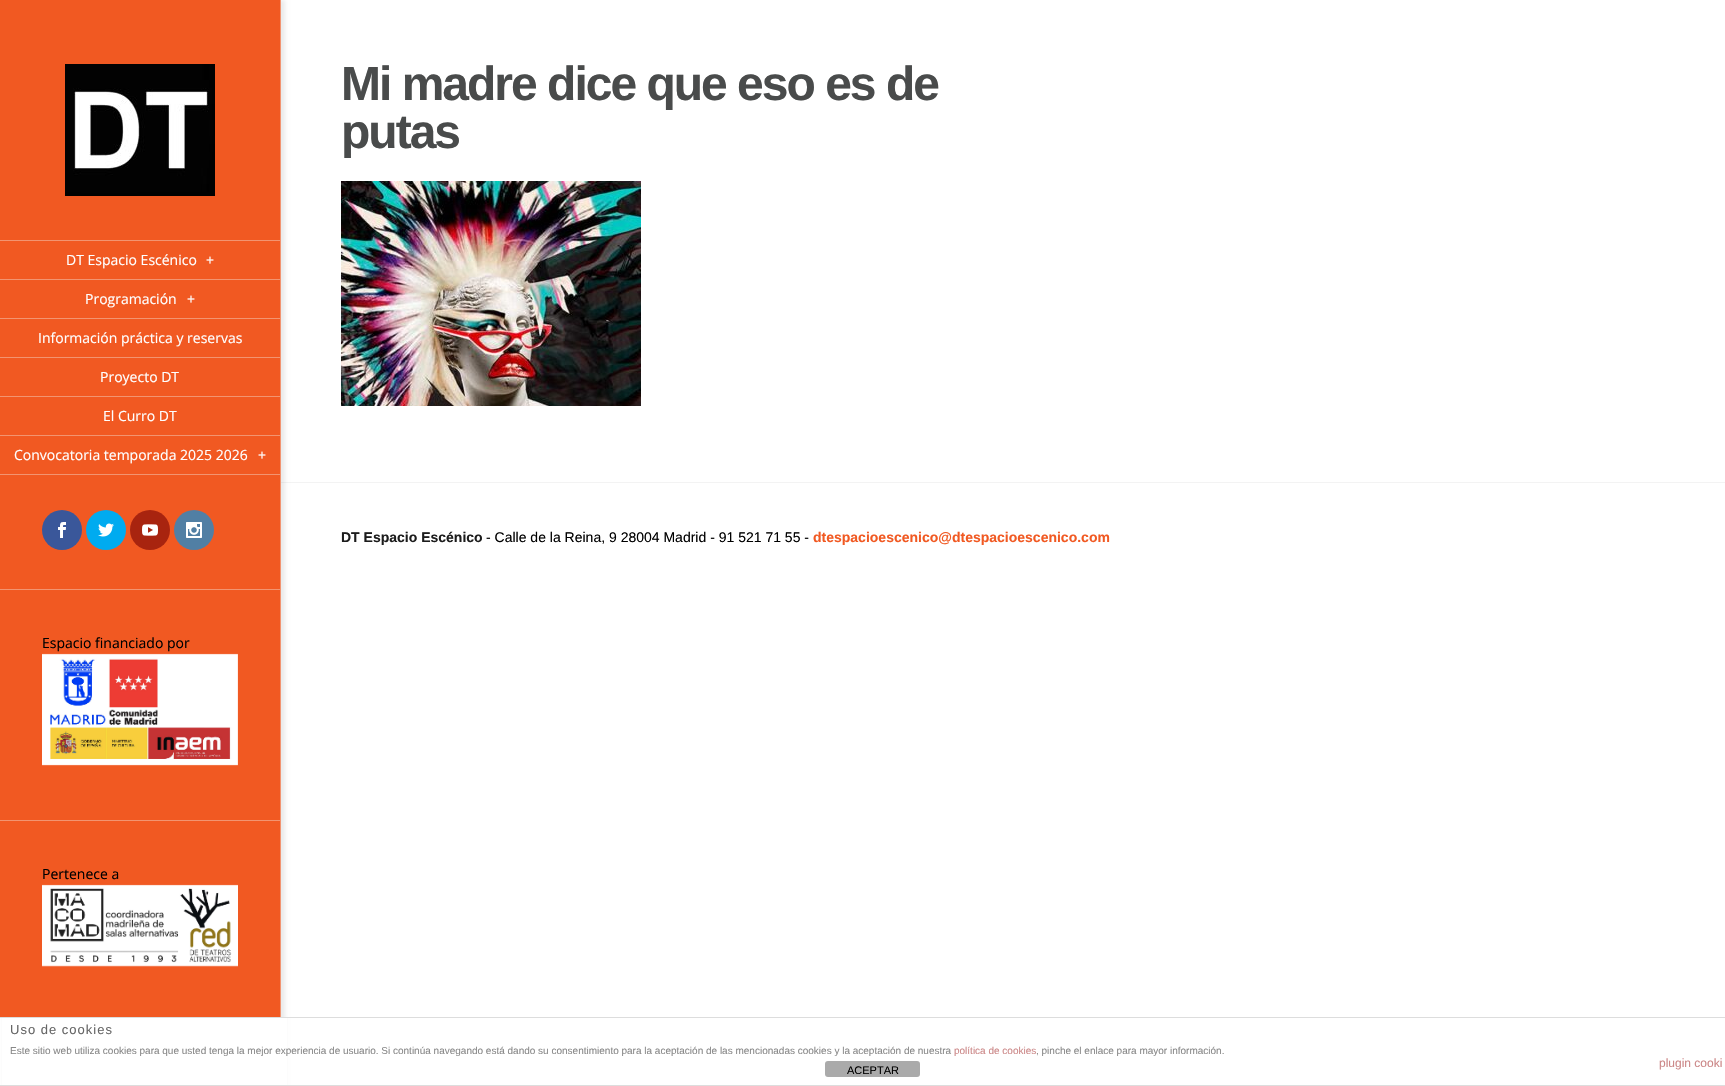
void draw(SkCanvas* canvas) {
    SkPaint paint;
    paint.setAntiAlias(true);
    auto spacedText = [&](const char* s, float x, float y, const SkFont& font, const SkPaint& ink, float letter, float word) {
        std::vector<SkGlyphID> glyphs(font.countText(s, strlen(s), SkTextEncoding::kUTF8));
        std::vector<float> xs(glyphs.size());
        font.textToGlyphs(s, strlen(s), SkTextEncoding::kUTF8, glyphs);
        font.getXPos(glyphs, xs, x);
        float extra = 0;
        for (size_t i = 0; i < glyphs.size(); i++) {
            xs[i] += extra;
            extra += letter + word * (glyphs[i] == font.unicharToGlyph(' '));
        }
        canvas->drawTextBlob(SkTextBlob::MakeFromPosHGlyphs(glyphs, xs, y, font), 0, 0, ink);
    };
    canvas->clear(0xFFFFFFFF);
    paint.setColor(0xFFF3F3F3);
    canvas->drawRect(SkRect::MakeXYWH(281, 482, 1444, 1), paint);
    paint.setColor(0x14000000);
    paint.setMaskFilter(SkMaskFilter::MakeBlur(kNormal_SkBlurStyle, 2));
    canvas->drawRect(SkRect::MakeXYWH(4, 0, 281, 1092), paint);
    paint.setMaskFilter(nullptr);
    paint.setColor(0xFFF15922);
    canvas->drawRect(SkRect::MakeXYWH(0, 0, 280, 1017), paint);
    paint.setColor(0xFFF29471);
    canvas->drawRect(SkRect::MakeXYWH(280, 0, 1, 1017), paint);
    SkFont font1(fontMgr->matchFamilyStyle("Liberation Sans", SkFontStyle::Bold()), 48);
    font1.setSubpixel(true);
    paint.setColor(0xFF494B4B);
    spacedText("Mi madre dice que eso es de", 341, 100, font1, paint, -2, 0);
    spacedText("putas", 341, 148, font1, paint, -2, 0);
    canvas->drawImageRect(SkImages::DeferredFromEncodedData(SkData::MakeFromFileName("img1.png")), SkRect::MakeXYWH(341, 181, 300, 225), SkSamplingOptions());
    SkFont font2(fontMgr->matchFamilyStyle("Liberation Sans", SkFontStyle::Bold()), 14);
    font2.setSubpixel(true);
    paint.setColor(0xFF1C1C1C);
    canvas->drawString("DT Espacio Escénico", 341, 542, font2, paint);
    SkFont font3(fontMgr->matchFamilyStyle("Liberation Sans", SkFontStyle::Normal()), 14);
    font3.setSubpixel(true);
    paint.setColor(0xFF000000);
    canvas->drawString("- Calle de la Reina, 9 28004 Madrid - 91 521 71 55 -", 486, 542, font3, paint);
    paint.setColor(0xFFF15922);
    canvas->drawString("dtespacioescenico@dtespacioescenico.com", 813, 542, font2, paint);
    canvas->drawImageRect(SkImages::DeferredFromEncodedData(SkData::MakeFromFileName("img2.png")), SkRect::MakeXYWH(65, 64, 150, 132), SkSamplingOptions());
    paint.setColor(0xFFF29471);
    canvas->drawRect(SkRect::MakeXYWH(0, 240, 280, 1), paint);
    canvas->drawRect(SkRect::MakeXYWH(0, 279, 280, 1), paint);
    SkFont font4(fontMgr->matchFamilyStyle("Open Sans", SkFontStyle::Normal()), 14);
    font4.setSubpixel(true);
    paint.setColor(0xFFFFFFFF);
    canvas->drawString("DT Espacio Escénico", 66, 265, font4, paint);
    canvas->drawString("+", 206, 265, font4, paint);
    paint.setColor(0xFFF29471);
    canvas->drawRect(SkRect::MakeXYWH(0, 318, 280, 1), paint);
    paint.setColor(0xFFFFFFFF);
    canvas->drawString("Programación", 85, 304, font4, paint);
    canvas->drawString("+", 187, 304, font4, paint);
    paint.setColor(0xFFF29471);
    canvas->drawRect(SkRect::MakeXYWH(0, 357, 280, 1), paint);
    paint.setColor(0xFFFFFFFF);
    canvas->drawString("Información práctica y reservas", 38, 343, font4, paint);
    paint.setColor(0xFFF29471);
    canvas->drawRect(SkRect::MakeXYWH(0, 396, 280, 1), paint);
    paint.setColor(0xFFFFFFFF);
    canvas->drawString("Proyecto DT", 100, 382, font4, paint);
    paint.setColor(0xFFF29471);
    canvas->drawRect(SkRect::MakeXYWH(0, 435, 280, 1), paint);
    paint.setColor(0xFFFFFFFF);
    canvas->drawString("El Curro DT", 103, 421, font4, paint);
    paint.setColor(0xFFF29471);
    canvas->drawRect(SkRect::MakeXYWH(0, 474, 280, 1), paint);
    paint.setColor(0xFFFFFFFF);
    canvas->drawString("Convocatoria temporada 2025 2026", 14, 460, font4, paint);
    canvas->drawString("+", 258, 460, font4, paint);
    paint.setColor(0xFFF29471);
    canvas->drawRect(SkRect::MakeXYWH(0, 589, 280, 1), paint);
    paint.setColor(0xFF3A579A);
    canvas->drawCircle(62, 530, 20, paint);
    canvas->drawImageRect(SkImages::DeferredFromEncodedData(SkData::MakeFromFileName("img3.png")), SkRect::MakeXYWH(58, 522, 8, 16), SkSamplingOptions());
    paint.setColor(0xFF00ABF0);
    canvas->drawCircle(106, 530, 20, paint);
    canvas->drawImageRect(SkImages::DeferredFromEncodedData(SkData::MakeFromFileName("img4.png")), SkRect::MakeXYWH(98, 523, 16, 14), SkSamplingOptions());
    paint.setColor(0xFFA8240F);
    canvas->drawCircle(150, 530, 20, paint);
    canvas->drawImageRect(SkImages::DeferredFromEncodedData(SkData::MakeFromFileName("img5.png")), SkRect::MakeXYWH(142, 524, 16, 12), SkSamplingOptions());
    paint.setColor(0xFF517FA4);
    canvas->drawCircle(194, 530, 20, paint);
    canvas->drawImageRect(SkImages::DeferredFromEncodedData(SkData::MakeFromFileName("img6.png")), SkRect::MakeXYWH(186, 522, 16, 16), SkSamplingOptions());
    paint.setColor(0xFFF29471);
    canvas->drawRect(SkRect::MakeXYWH(0, 820, 280, 1), paint);
    paint.setColor(0xFF000000);
    canvas->drawString("Espacio financiado por", 42, 648, font4, paint);
    canvas->drawImageRect(SkImages::DeferredFromEncodedData(SkData::MakeFromFileName("img7.png")), SkRect::MakeXYWH(42, 653, 196, 113), SkSamplingOptions());
    canvas->drawString("Pertenece a", 42, 879, font4, paint);
    canvas->drawImageRect(SkImages::DeferredFromEncodedData(SkData::MakeFromFileName("img8.png")), SkRect::MakeXYWH(42, 884, 196, 83), SkSamplingOptions());
    paint.setColor(0xFFFFFFFF);
    canvas->drawRect(SkRect::MakeXYWH(2, 1018, 285, 67), paint);
    paint.setColor(0xFFDDDDDD);
    canvas->drawRect(SkRect::MakeXYWH(0, 1017, 1725, 1), paint);
    canvas->drawRect(SkRect::MakeXYWH(0, 1085, 1725, 1), paint);
    SkFont font5(fontMgr->matchFamilyStyle("Liberation Sans", SkFontStyle::Normal()), 13);
    font5.setSubpixel(true);
    paint.setColor(0xFF666666);
    spacedText("Uso de cookies", 10, 1034, font5, paint, 1, 0);
    SkFont font6(fontMgr->matchFamilyStyle("Liberation Sans", SkFontStyle::Normal()), 10);
    font6.setSubpixel(true);
    paint.setColor(0xFF888888);
    canvas->drawString("Este sitio web utiliza cookies para que usted tenga la mejor experiencia de usuario. Si continúa navegando está dando su consentimiento para la aceptación de las mencionadas cookies y la aceptación de nuestra", 10, 1054, font6, paint);
    paint.setColor(0xFFCC8888);
    canvas->drawString("política de cookies", 954, 1054, font6, paint);
    paint.setColor(0xFF888888);
    canvas->drawString(", pinche el enlace para mayor información.", 1036, 1054, font6, paint);
    SkFont font7(fontMgr->matchFamilyStyle("Liberation Sans", SkFontStyle::Normal()), 12);
    font7.setSubpixel(true);
    paint.setColor(0xFFCC8888);
    canvas->drawString("plugin cooki", 1659, 1067, font7, paint);
    paint.setColor(0xFFAAAAAA);
    canvas->drawRoundRect(SkRect::MakeXYWH(825, 1061, 95, 16), 3, 3, paint);
    SkFont font8(fontMgr->matchFamilyStyle("Liberation Sans", SkFontStyle::Normal()), 11);
    font8.setSubpixel(true);
    paint.setColor(0xFF000000);
    canvas->drawString("ACEPTAR", 847, 1074, font8, paint);
}
